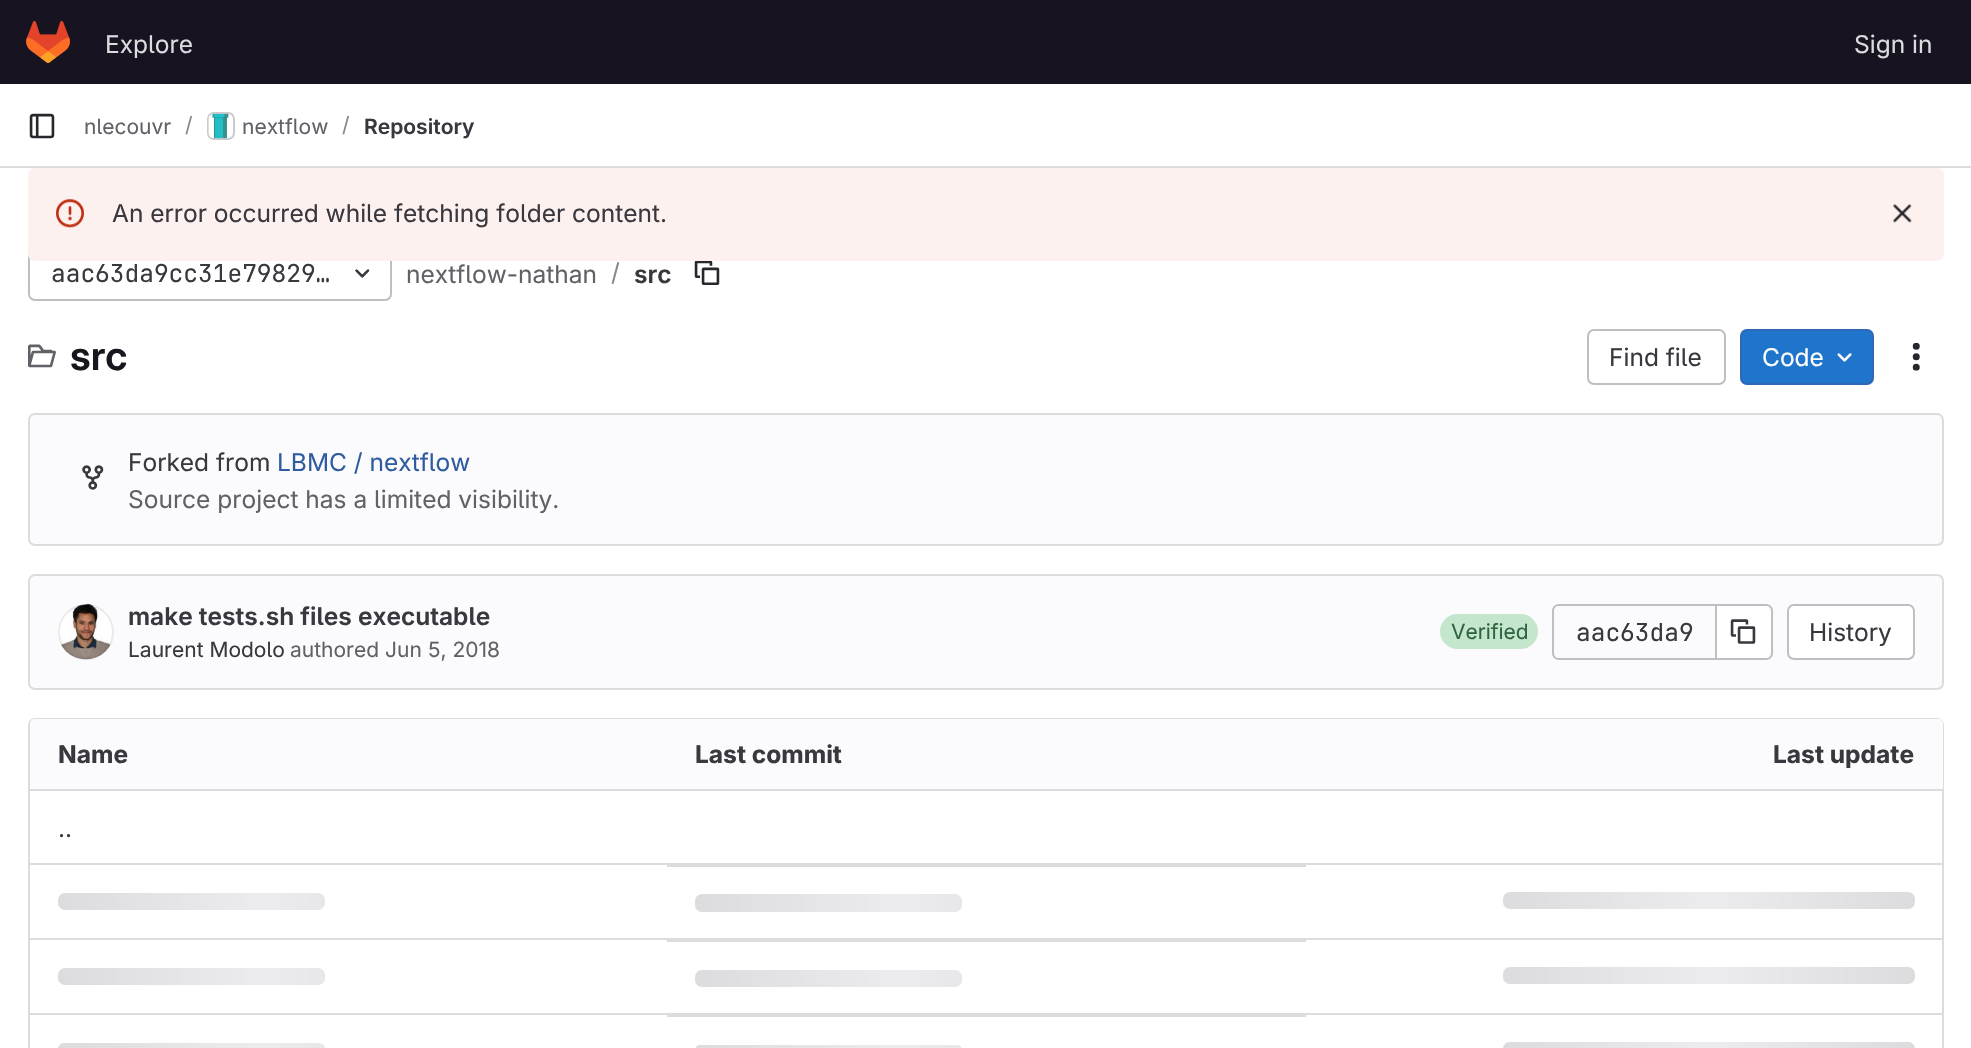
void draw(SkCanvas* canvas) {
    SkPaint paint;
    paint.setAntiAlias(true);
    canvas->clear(0xFFFFFFFF);
    paint.setColor(0xFF171321);
    canvas->drawRect(SkRect::MakeXYWH(0, 0, 1971, 84), paint);
    canvas->drawImageRect(SkImages::DeferredFromEncodedData(SkData::MakeFromFileName("img1.png")), SkRect::MakeXYWH(26, 21, 44, 42), SkSamplingOptions());
    SkFont font1(fontMgr->matchFamilyStyle("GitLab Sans", SkFontStyle::Normal()), 24.5f);
    font1.setSubpixel(true);
    paint.setColor(0xFFDCDCDE);
    canvas->drawString("Explore", 105, 53, font1, paint);
    canvas->drawString("Sign in", 1854, 53, font1, paint);
    canvas->drawRect(SkRect::MakeXYWH(0, 166, 1971, 2), paint);
    canvas->drawImageRect(SkImages::DeferredFromEncodedData(SkData::MakeFromFileName("img2.png")), SkRect::MakeXYWH(29, 113, 26, 26), SkSamplingOptions());
    SkFont font2(fontMgr->matchFamilyStyle("GitLab Sans", SkFontStyle::Normal()), 21);
    font2.setSubpixel(true);
    paint.setColor(0xFF626168);
    canvas->drawString("nlecouvr", 84, 134, font2, paint);
    paint.setColor(0xFF89888D);
    canvas->drawString("/", 185, 132, font2, paint);
    paint.setStyle(SkPaint::kStroke_Style);
    paint.setStrokeWidth(2);
    paint.setColor(0xFFDCDCDE);
    canvas->drawRoundRect(SkRect::MakeXYWH(208, 113, 26, 26), 6, 6, paint);
    canvas->drawImageRect(SkImages::DeferredFromEncodedData(SkData::MakeFromFileName("img3.png")), SkRect::MakeXYWH(208, 113, 24, 26), SkSamplingOptions());
    paint.setColor(0x14050506);
    canvas->drawRoundRect(SkRect::MakeXYWH(208, 113, 26, 26), 6, 6, paint);
    paint.setStyle(SkPaint::kFill_Style);
    paint.setColor(0xFF626168);
    canvas->drawString("nextflow", 242, 134, font2, paint);
    paint.setColor(0xFF89888D);
    canvas->drawString("/", 342, 132, font2, paint);
    SkFont font3(fontMgr->matchFamilyStyle("GitLab Sans", SkFontStyle(600, SkFontStyle::kNormal_Width, SkFontStyle::kUpright_Slant)), 21);
    font3.setSubpixel(true);
    paint.setColor(0xFF3A383F);
    canvas->drawString("Repository", 364, 134, font3, paint);
    paint.setStyle(SkPaint::kStroke_Style);
    paint.setColor(0xFFBFBFC3);
    canvas->drawRoundRect(SkRect::MakeXYWH(29, 246, 362, 54), 6, 6, paint);
    paint.setStyle(SkPaint::kFill_Style);
    paint.setColor(0xFFFCF1EF);
    canvas->drawRoundRect(SkRect::MakeXYWH(28, 168, 1916, 93), 7, 7, paint);
    canvas->drawImageRect(SkImages::DeferredFromEncodedData(SkData::MakeFromFileName("img4.png")), SkRect::MakeXYWH(56, 199, 28, 29), SkSamplingOptions());
    paint.setColor(0xFF3A383F);
    canvas->drawString("An error occurred while fetching folder content.", 112, 222, font1, paint);
    canvas->drawImageRect(SkImages::DeferredFromEncodedData(SkData::MakeFromFileName("img5.png")), SkRect::MakeXYWH(1893, 204, 19, 19), SkSamplingOptions());
    SkFont font4(fontMgr->matchFamilyStyle("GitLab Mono", SkFontStyle::Normal()), 24.5f);
    font4.setSubpixel(true);
    canvas->drawString("aac63da9cc31e79829…", 51, 282, font4, paint);
    canvas->drawImageRect(SkImages::DeferredFromEncodedData(SkData::MakeFromFileName("img6.png")), SkRect::MakeXYWH(355, 269, 15, 9), SkSamplingOptions());
    paint.setColor(0xFF626168);
    canvas->drawString("nextflow-nathan", 406, 283, font1, paint);
    paint.setColor(0xFF89888D);
    canvas->drawString("/", 611, 281, font1, paint);
    SkFont font5(fontMgr->matchFamilyStyle("GitLab Sans", SkFontStyle(600, SkFontStyle::kNormal_Width, SkFontStyle::kUpright_Slant)), 24.5f);
    font5.setSubpixel(true);
    paint.setColor(0xFF3A383F);
    canvas->drawString("src", 634, 283, font5, paint);
    canvas->drawImageRect(SkImages::DeferredFromEncodedData(SkData::MakeFromFileName("img7.png")), SkRect::MakeXYWH(694, 261, 26, 24), SkSamplingOptions());
    canvas->drawImageRect(SkImages::DeferredFromEncodedData(SkData::MakeFromFileName("img8.png")), SkRect::MakeXYWH(28, 344, 28, 24), SkSamplingOptions());
    SkFont font6(fontMgr->matchFamilyStyle("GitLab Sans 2", SkFontStyle(600, SkFontStyle::kNormal_Width, SkFontStyle::kUpright_Slant)), 40);
    font6.setSubpixel(true);
    paint.setColor(0xFF18171D);
    canvas->drawString("src", 70, 370, font6, paint);
    paint.setStyle(SkPaint::kStroke_Style);
    paint.setColor(0xFFBFBFC3);
    canvas->drawRoundRect(SkRect::MakeXYWH(1588, 330, 137, 54), 6, 6, paint);
    paint.setStyle(SkPaint::kFill_Style);
    paint.setColor(0xFF3A383F);
    canvas->drawString("Find file", 1609, 366, font1, paint);
    paint.setColor(0xFF1F75CB);
    canvas->drawRoundRect(SkRect::MakeXYWH(1741, 330, 132, 54), 6, 6, paint);
    paint.setStyle(SkPaint::kStroke_Style);
    paint.setColor(0xFF2F68B4);
    canvas->drawRoundRect(SkRect::MakeXYWH(1741, 330, 132, 54), 6, 6, paint);
    paint.setStyle(SkPaint::kFill_Style);
    paint.setColor(0xFFFFFFFF);
    canvas->drawString("Code", 1762, 366, font1, paint);
    canvas->drawImageRect(SkImages::DeferredFromEncodedData(SkData::MakeFromFileName("img9.png")), SkRect::MakeXYWH(1837, 353, 15, 9), SkSamplingOptions());
    canvas->drawImageRect(SkImages::DeferredFromEncodedData(SkData::MakeFromFileName("img10.png")), SkRect::MakeXYWH(1912, 342, 8, 29), SkSamplingOptions());
    paint.setColor(0xFFFBFAFD);
    canvas->drawRoundRect(SkRect::MakeXYWH(29, 414, 1914, 131), 6, 6, paint);
    paint.setStyle(SkPaint::kStroke_Style);
    paint.setColor(0xFFDCDCDE);
    canvas->drawRoundRect(SkRect::MakeXYWH(29, 414, 1914, 131), 6, 6, paint);
    canvas->drawImageRect(SkImages::DeferredFromEncodedData(SkData::MakeFromFileName("img11.png")), SkRect::MakeXYWH(82, 465, 22, 25), SkSamplingOptions());
    paint.setStyle(SkPaint::kFill_Style);
    paint.setColor(0xFF3A383F);
    canvas->drawString("Forked from", 128, 471, font1, paint);
    paint.setColor(0xFF2F5CA0);
    canvas->drawString("LBMC / nextflow", 277, 471, font1, paint);
    paint.setColor(0xFF626168);
    canvas->drawString("Source project has a limited visibility.", 128, 508, font1, paint);
    paint.setColor(0xFFFBFAFD);
    canvas->drawRoundRect(SkRect::MakeXYWH(29, 575, 1914, 114), 6, 6, paint);
    paint.setStyle(SkPaint::kStroke_Style);
    paint.setColor(0xFFDCDCDE);
    canvas->drawRoundRect(SkRect::MakeXYWH(29, 575, 1914, 114), 6, 6, paint);
    canvas->drawImageRect(SkImages::DeferredFromEncodedData(SkData::MakeFromFileName("img12.png")), SkRect::MakeXYWH(58, 603, 55, 57), SkSamplingOptions());
    paint.setColor(0x14050506);
    canvas->drawCircle(86, 632, 27, paint);
    paint.setStyle(SkPaint::kFill_Style);
    paint.setColor(0xFF3A383F);
    canvas->drawString("make tests.sh files executable", 128, 625, font5, paint);
    canvas->drawString("Laurent Modolo", 128, 657, font2, paint);
    paint.setColor(0xFF626168);
    canvas->drawString("authored Jun 5, 2018", 290, 657, font2, paint);
    paint.setColor(0xFFC3E6CD);
    canvas->drawRoundRect(SkRect::MakeXYWH(1440, 614, 98, 35), 17.5f, 17.5f, paint);
    paint.setColor(0xFF306440);
    canvas->drawString("Verified", 1451, 639, font2, paint);
    paint.setColor(0xFFBFBFC3);
    canvas->drawPath(SkPathBuilder(SkPathFillType::kEvenOdd).moveTo(1559, 604).lineTo(1715, 604).lineTo(1715, 660).lineTo(1559, 660).cubicTo(1555, 660, 1552, 657, 1552, 653).lineTo(1552, 611).cubicTo(1552, 607, 1555, 604, 1559, 604).close().moveTo(1559, 606).lineTo(1715, 606).lineTo(1715, 658).lineTo(1559, 658).cubicTo(1556, 658, 1554, 656, 1554, 653).lineTo(1554, 611).cubicTo(1554, 608, 1556, 606, 1559, 606).close().detach(), paint);
    paint.setColor(0xFF3A383F);
    canvas->drawString("aac63da9", 1576, 641, font4, paint);
    paint.setColor(0xFFFFFFFF);
    canvas->drawPath(SkPathBuilder().moveTo(1717, 606).lineTo(1766, 606).cubicTo(1769, 606, 1771, 608, 1771, 611).lineTo(1771, 653).cubicTo(1771, 656, 1769, 658, 1766, 658).lineTo(1717, 658).close().detach(), paint);
    paint.setColor(0xFFBFBFC3);
    canvas->drawPath(SkPathBuilder(SkPathFillType::kEvenOdd).moveTo(1717, 604).lineTo(1766, 604).cubicTo(1770, 604, 1773, 607, 1773, 611).lineTo(1773, 653).cubicTo(1773, 657, 1770, 660, 1766, 660).lineTo(1717, 660).close().moveTo(1717, 606).lineTo(1766, 606).cubicTo(1769, 606, 1771, 608, 1771, 611).lineTo(1771, 653).cubicTo(1771, 656, 1769, 658, 1766, 658).lineTo(1717, 658).close().detach(), paint);
    canvas->drawRect(SkRect::MakeXYWH(1715, 604, 2, 56), paint);
    canvas->drawImageRect(SkImages::DeferredFromEncodedData(SkData::MakeFromFileName("img13.png")), SkRect::MakeXYWH(1730, 619, 26, 25), SkSamplingOptions());
    paint.setColor(0xFFFFFFFF);
    canvas->drawRoundRect(SkRect::MakeXYWH(1788, 605, 126, 54), 6, 6, paint);
    paint.setStyle(SkPaint::kStroke_Style);
    paint.setColor(0xFFBFBFC3);
    canvas->drawRoundRect(SkRect::MakeXYWH(1788, 605, 126, 54), 6, 6, paint);
    paint.setStyle(SkPaint::kFill_Style);
    paint.setColor(0xFF3A383F);
    canvas->drawString("History", 1809, 641, font1, paint);
    paint.setStyle(SkPaint::kStroke_Style);
    paint.setColor(0xFFDCDCDE);
    canvas->drawRoundRect(SkRect::MakeXYWH(29, 719, 1914, 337), 6, 6, paint);
    paint.setStyle(SkPaint::kFill_Style);
    paint.setColor(0xFFFBFAFD);
    canvas->drawPath(SkPathBuilder().moveTo(35, 719).lineTo(667, 719).lineTo(667, 791).lineTo(30, 791).lineTo(30, 724).cubicTo(30, 721, 32, 719, 35, 719).close().detach(), paint);
    SkFont font7(fontMgr->matchFamilyStyle("GitLab Sans", SkFontStyle::Bold()), 24.5f);
    font7.setSubpixel(true);
    paint.setColor(0xFF3A383F);
    canvas->drawString("Name", 58, 763, font7, paint);
    paint.setColor(0xFFFBFAFD);
    canvas->drawRect(SkRect::MakeXYWH(667, 719, 639, 70), paint);
    paint.setColor(0xFF3A383F);
    canvas->drawString("Last commit", 695, 763, font7, paint);
    paint.setColor(0xFFFBFAFD);
    canvas->drawPath(SkPathBuilder().moveTo(1306, 719).lineTo(1938, 719).cubicTo(1941, 719, 1943, 721, 1943, 724).lineTo(1943, 791).lineTo(1306, 791).close().detach(), paint);
    paint.setColor(0xFF3A383F);
    canvas->drawString("Last update", 1773, 763, font7, paint);
    paint.setColor(0xFFDCDCDE);
    canvas->drawRect(SkRect::MakeXYWH(30, 863, 1913, 2), paint);
    canvas->drawRect(SkRect::MakeXYWH(30, 789, 1913, 2), paint);
    paint.setColor(0xFF3A383F);
    canvas->drawString("..", 58, 837, font1, paint);
    paint.setColor(0xFFDCDCDE);
    canvas->drawRect(SkRect::MakeXYWH(30, 938, 1913, 2), paint);
    {
        const SkColor colors[] = {0xFFDCDCDE, 0xFFECECEF, 0xFFDCDCDE};
        const float stops[] = {0, 0.5f, 1};
        const SkPoint ends[] = {{58, 893}, {469, 893}};
        paint.setShader(SkGradientShader::MakeLinear(ends, colors, stops, 3, SkTileMode::kClamp));
        paint.setAlpha(255);
    }
    canvas->drawRoundRect(SkRect::MakeXYWH(58, 893, 267, 17), 7, 7, paint);
    paint.setShader(nullptr);
    paint.setColor(0xFFDCDCDE);
    canvas->drawRect(SkRect::MakeXYWH(667, 865, 639, 2), paint);
    {
        const SkColor colors[] = {0xFFDCDCDE, 0xFFECECEF, 0xFFDCDCDE};
        const float stops[] = {0, 0.5f, 1};
        const SkPoint ends[] = {{695, 894}, {1106, 894}};
        paint.setShader(SkGradientShader::MakeLinear(ends, colors, stops, 3, SkTileMode::kClamp));
        paint.setAlpha(255);
    }
    canvas->drawRoundRect(SkRect::MakeXYWH(695, 894, 267, 18), 7, 7, paint);
    {
        const SkColor colors[] = {0xFFDCDCDE, 0xFFECECEF, 0xFFDCDCDE};
        const float stops[] = {0, 0.5f, 1};
        const SkPoint ends[] = {{1503, 892}, {1915, 892}};
        paint.setShader(SkGradientShader::MakeLinear(ends, colors, stops, 3, SkTileMode::kClamp));
        paint.setAlpha(255);
    }
    canvas->drawRoundRect(SkRect::MakeXYWH(1503, 892, 412, 17), 7, 7, paint);
    paint.setShader(nullptr);
    paint.setColor(0xFFDCDCDE);
    canvas->drawRect(SkRect::MakeXYWH(30, 1013, 1913, 2), paint);
    {
        const SkColor colors[] = {0xFFDCDCDE, 0xFFECECEF, 0xFFDCDCDE};
        const float stops[] = {0, 0.5f, 1};
        const SkPoint ends[] = {{58, 968}, {469, 968}};
        paint.setShader(SkGradientShader::MakeLinear(ends, colors, stops, 3, SkTileMode::kClamp));
        paint.setAlpha(255);
    }
    canvas->drawRoundRect(SkRect::MakeXYWH(58, 968, 267, 17), 7, 7, paint);
    paint.setShader(nullptr);
    paint.setColor(0xFFDCDCDE);
    canvas->drawRect(SkRect::MakeXYWH(667, 940, 639, 2), paint);
    {
        const SkColor colors[] = {0xFFDCDCDE, 0xFFECECEF, 0xFFDCDCDE};
        const float stops[] = {0, 0.5f, 1};
        const SkPoint ends[] = {{695, 970}, {1106, 970}};
        paint.setShader(SkGradientShader::MakeLinear(ends, colors, stops, 3, SkTileMode::kClamp));
        paint.setAlpha(255);
    }
    canvas->drawRoundRect(SkRect::MakeXYWH(695, 970, 267, 17), 7, 7, paint);
    {
        const SkColor colors[] = {0xFFDCDCDE, 0xFFECECEF, 0xFFDCDCDE};
        const float stops[] = {0, 0.5f, 1};
        const SkPoint ends[] = {{1503, 967}, {1915, 967}};
        paint.setShader(SkGradientShader::MakeLinear(ends, colors, stops, 3, SkTileMode::kClamp));
        paint.setAlpha(255);
    }
    canvas->drawRoundRect(SkRect::MakeXYWH(1503, 967, 412, 17), 7, 7, paint);
    {
        const SkColor colors[] = {0xFFDCDCDE, 0xFFECECEF, 0xFFDCDCDE};
        const float stops[] = {0, 0.5f, 1};
        const SkPoint ends[] = {{58, 1043}, {469, 1043}};
        paint.setShader(SkGradientShader::MakeLinear(ends, colors, stops, 3, SkTileMode::kClamp));
        paint.setAlpha(255);
    }
    canvas->drawRoundRect(SkRect::MakeXYWH(58, 1043, 267, 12), 7, 7, paint);
    paint.setShader(nullptr);
    paint.setColor(0xFFDCDCDE);
    canvas->drawRect(SkRect::MakeXYWH(667, 1015, 639, 2), paint);
    {
        const SkColor colors[] = {0xFFDCDCDE, 0xFFECECEF, 0xFFDCDCDE};
        const float stops[] = {0, 0.5f, 1};
        const SkPoint ends[] = {{695, 1045}, {1106, 1045}};
        paint.setShader(SkGradientShader::MakeLinear(ends, colors, stops, 3, SkTileMode::kClamp));
        paint.setAlpha(255);
    }
    canvas->drawRoundRect(SkRect::MakeXYWH(695, 1045, 267, 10), 7, 7, paint);
    {
        const SkColor colors[] = {0xFFDCDCDE, 0xFFECECEF, 0xFFDCDCDE};
        const float stops[] = {0, 0.5f, 1};
        const SkPoint ends[] = {{1503, 1042}, {1915, 1042}};
        paint.setShader(SkGradientShader::MakeLinear(ends, colors, stops, 3, SkTileMode::kClamp));
        paint.setAlpha(255);
    }
    canvas->drawRoundRect(SkRect::MakeXYWH(1503, 1042, 412, 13), 7, 7, paint);
}
